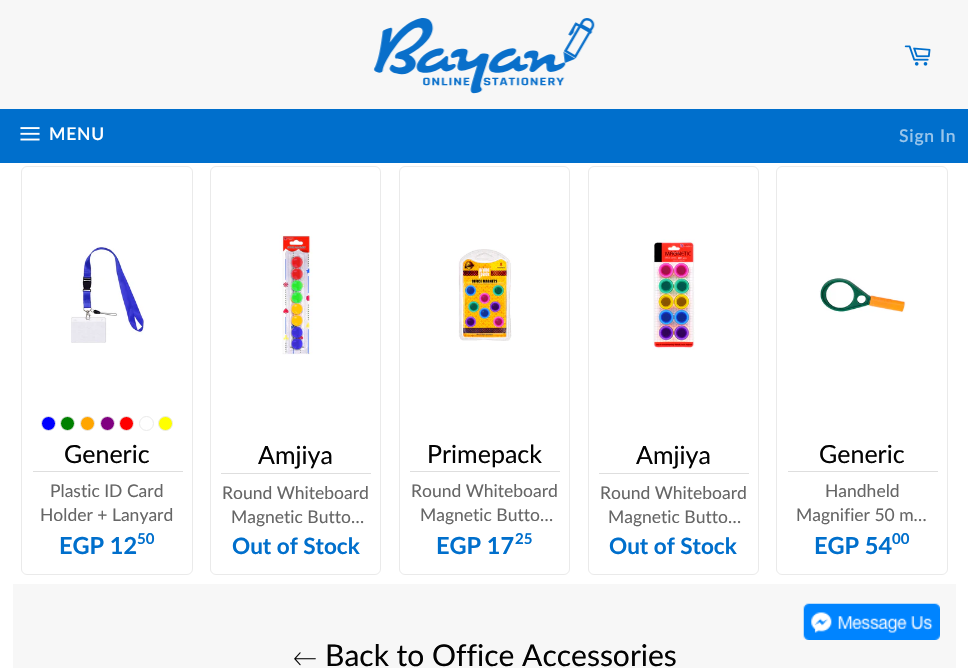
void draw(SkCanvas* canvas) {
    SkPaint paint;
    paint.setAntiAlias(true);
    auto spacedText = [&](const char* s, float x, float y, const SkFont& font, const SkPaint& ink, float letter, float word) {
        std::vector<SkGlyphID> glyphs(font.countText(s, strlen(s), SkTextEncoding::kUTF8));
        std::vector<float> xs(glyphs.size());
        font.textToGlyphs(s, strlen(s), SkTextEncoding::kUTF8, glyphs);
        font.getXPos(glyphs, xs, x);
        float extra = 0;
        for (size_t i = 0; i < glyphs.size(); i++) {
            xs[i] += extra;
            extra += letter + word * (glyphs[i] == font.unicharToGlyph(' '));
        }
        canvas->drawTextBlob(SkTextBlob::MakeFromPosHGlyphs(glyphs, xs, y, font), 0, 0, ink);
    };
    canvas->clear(0xFFFFFFFF);
    paint.setColor(0xFFF7F7F7);
    canvas->drawRect(SkRect::MakeXYWH(0, 0, 968, 109), paint);
    canvas->drawImageRect(SkImages::DeferredFromEncodedData(SkData::MakeFromFileName("img1.png")), SkRect::MakeXYWH(373, 18, 222, 76), SkSamplingOptions());
    canvas->drawImageRect(SkImages::DeferredFromEncodedData(SkData::MakeFromFileName("img2.png")), SkRect::MakeXYWH(904, 45, 27, 21), SkSamplingOptions());
    paint.setColor(0xFF006FCC);
    canvas->drawRect(SkRect::MakeXYWH(0, 109, 968, 54), paint);
    canvas->drawImageRect(SkImages::DeferredFromEncodedData(SkData::MakeFromFileName("img3.png")), SkRect::MakeXYWH(20, 127, 20, 14), SkSamplingOptions());
    SkFont font1(fontMgr->matchFamilyStyle("Lato", SkFontStyle(600, SkFontStyle::kNormal_Width, SkFontStyle::kUpright_Slant)), 17.5f);
    font1.setSubpixel(true);
    paint.setColor(0xFFFFFFFF);
    spacedText("MENU", 49, 140, font1, paint, 0.75f, 0);
    paint.setColor(0xFF99C5EB);
    spacedText("Sign In", 899, 142, font1, paint, 0.75f, 0);
    paint.setStyle(SkPaint::kStroke_Style);
    paint.setStrokeWidth(1);
    paint.setColor(0xFFEAEAEA);
    canvas->drawRoundRect(SkRect::MakeXYWH(21.5f, 166.5f, 171, 408), 5.5f, 5.5f, paint);
    canvas->drawImageRect(SkImages::DeferredFromEncodedData(SkData::MakeFromFileName("img4.png")), SkRect::MakeXYWH(71, 246, 74, 97), SkSamplingOptions());
    paint.setStyle(SkPaint::kFill_Style);
    paint.setColor(0xFF0000FF);
    canvas->drawCircle(48.5f, 423.5f, 7, paint);
    paint.setStyle(SkPaint::kStroke_Style);
    paint.setColor(0xFFEAEAEA);
    canvas->drawCircle(48.5f, 423.5f, 7, paint);
    paint.setStyle(SkPaint::kFill_Style);
    paint.setColor(0xFF008000);
    canvas->drawCircle(67.5f, 423.5f, 7, paint);
    paint.setStyle(SkPaint::kStroke_Style);
    paint.setColor(0xFFEAEAEA);
    canvas->drawCircle(67.5f, 423.5f, 7, paint);
    paint.setStyle(SkPaint::kFill_Style);
    paint.setColor(0xFFFFA500);
    canvas->drawCircle(87.5f, 423.5f, 7, paint);
    paint.setStyle(SkPaint::kStroke_Style);
    paint.setColor(0xFFEAEAEA);
    canvas->drawCircle(87.5f, 423.5f, 7, paint);
    paint.setStyle(SkPaint::kFill_Style);
    paint.setColor(0xFF800080);
    canvas->drawCircle(107.5f, 423.5f, 7, paint);
    paint.setStyle(SkPaint::kStroke_Style);
    paint.setColor(0xFFEAEAEA);
    canvas->drawCircle(107.5f, 423.5f, 7, paint);
    paint.setStyle(SkPaint::kFill_Style);
    paint.setColor(0xFFFF0000);
    canvas->drawCircle(126.5f, 423.5f, 7, paint);
    paint.setStyle(SkPaint::kStroke_Style);
    paint.setColor(0xFFEAEAEA);
    canvas->drawCircle(126.5f, 423.5f, 7, paint);
    canvas->drawCircle(146.5f, 423.5f, 7, paint);
    paint.setStyle(SkPaint::kFill_Style);
    paint.setColor(0xFFFFFF00);
    canvas->drawCircle(165.5f, 423.5f, 7, paint);
    paint.setStyle(SkPaint::kStroke_Style);
    paint.setColor(0xFFEAEAEA);
    canvas->drawCircle(165.5f, 423.5f, 7, paint);
    SkFont font2(fontMgr->matchFamilyStyle("Lato", SkFontStyle::Normal()), 25);
    font2.setSubpixel(true);
    paint.setStyle(SkPaint::kFill_Style);
    paint.setColor(0xFF030303);
    canvas->drawString("Generic", 64, 463, font2, paint);
    paint.setColor(0xFFDEDEDE);
    canvas->drawRect(SkRect::MakeXYWH(33, 471, 150, 1), paint);
    SkFont font3(fontMgr->matchFamilyStyle("Lato", SkFontStyle::Normal()), 17.5f);
    font3.setSubpixel(true);
    paint.setColor(0xFF666666);
    canvas->drawString("Plastic ID Card", 50, 497, font3, paint);
    canvas->drawString("Holder + Lanyard", 40, 521, font3, paint);
    SkFont font4(fontMgr->matchFamilyStyle("Lato", SkFontStyle::Bold()), 23.5f);
    font4.setSubpixel(true);
    paint.setColor(0xFF006FCC);
    canvas->drawString("EGP 12", 59, 554, font4, paint);
    SkFont font5(fontMgr->matchFamilyStyle("Lato", SkFontStyle::Bold()), 15);
    font5.setSubpixel(true);
    canvas->drawString("50", 137, 544, font5, paint);
    paint.setStyle(SkPaint::kStroke_Style);
    paint.setColor(0xFFEAEAEA);
    canvas->drawRoundRect(SkRect::MakeXYWH(210.5f, 166.5f, 170, 408), 5.5f, 5.5f, paint);
    canvas->drawImageRect(SkImages::DeferredFromEncodedData(SkData::MakeFromFileName("img5.png")), SkRect::MakeXYWH(279, 235, 34, 120), SkSamplingOptions());
    paint.setStyle(SkPaint::kFill_Style);
    paint.setColor(0xFF030303);
    canvas->drawString("Amjiya", 258, 464, font2, paint);
    paint.setColor(0xFFDEDEDE);
    canvas->drawRect(SkRect::MakeXYWH(221, 473, 150, 1), paint);
    paint.setColor(0xFF666666);
    canvas->drawString("Round Whiteboard", 222, 499, font3, paint);
    canvas->drawString("Magnetic Butto…", 231, 523, font3, paint);
    SkFont font6(fontMgr->matchFamilyStyle("Lato", SkFontStyle::Bold()), 22.5f);
    font6.setSubpixel(true);
    paint.setColor(0xFF006FCC);
    canvas->drawString("Out of Stock", 232, 554, font6, paint);
    paint.setStyle(SkPaint::kStroke_Style);
    paint.setColor(0xFFEAEAEA);
    canvas->drawRoundRect(SkRect::MakeXYWH(399.5f, 166.5f, 170, 408), 5.5f, 5.5f, paint);
    canvas->drawImageRect(SkImages::DeferredFromEncodedData(SkData::MakeFromFileName("img6.png")), SkRect::MakeXYWH(458, 249, 54, 92), SkSamplingOptions());
    paint.setStyle(SkPaint::kFill_Style);
    paint.setColor(0xFF030303);
    canvas->drawString("Primepack", 427, 463, font2, paint);
    paint.setColor(0xFFDEDEDE);
    canvas->drawRect(SkRect::MakeXYWH(410, 471, 150, 1), paint);
    paint.setColor(0xFF666666);
    canvas->drawString("Round Whiteboard", 411, 497, font3, paint);
    canvas->drawString("Magnetic Butto…", 420, 521, font3, paint);
    paint.setColor(0xFF006FCC);
    canvas->drawString("EGP 17", 436, 554, font4, paint);
    canvas->drawString("25", 515, 544, font5, paint);
    paint.setStyle(SkPaint::kStroke_Style);
    paint.setColor(0xFFEAEAEA);
    canvas->drawRoundRect(SkRect::MakeXYWH(588.5f, 166.5f, 170, 408), 5.5f, 5.5f, paint);
    canvas->drawImageRect(SkImages::DeferredFromEncodedData(SkData::MakeFromFileName("img7.png")), SkRect::MakeXYWH(652, 239, 43, 111), SkSamplingOptions());
    paint.setStyle(SkPaint::kFill_Style);
    paint.setColor(0xFF030303);
    canvas->drawString("Amjiya", 636, 464, font2, paint);
    paint.setColor(0xFFDEDEDE);
    canvas->drawRect(SkRect::MakeXYWH(599, 473, 150, 1), paint);
    paint.setColor(0xFF666666);
    canvas->drawString("Round Whiteboard", 600, 499, font3, paint);
    canvas->drawString("Magnetic Butto…", 608, 523, font3, paint);
    paint.setColor(0xFF006FCC);
    canvas->drawString("Out of Stock", 609, 554, font6, paint);
    paint.setStyle(SkPaint::kStroke_Style);
    paint.setColor(0xFFEAEAEA);
    canvas->drawRoundRect(SkRect::MakeXYWH(776.5f, 166.5f, 171, 408), 5.5f, 5.5f, paint);
    canvas->drawImageRect(SkImages::DeferredFromEncodedData(SkData::MakeFromFileName("img8.png")), SkRect::MakeXYWH(819, 277, 87, 36), SkSamplingOptions());
    paint.setStyle(SkPaint::kFill_Style);
    paint.setColor(0xFF030303);
    canvas->drawString("Generic", 819, 463, font2, paint);
    paint.setColor(0xFFDEDEDE);
    canvas->drawRect(SkRect::MakeXYWH(788, 471, 150, 1), paint);
    paint.setColor(0xFF666666);
    canvas->drawString("Handheld", 825, 497, font3, paint);
    canvas->drawString("Magnifier 50 m…", 796, 521, font3, paint);
    paint.setColor(0xFF006FCC);
    canvas->drawString("EGP 54", 814, 554, font4, paint);
    canvas->drawString("00", 892, 544, font5, paint);
    paint.setColor(0xFFF7F7F7);
    canvas->drawRect(SkRect::MakeXYWH(13, 584, 943, 84), paint);
    canvas->drawImageRect(SkImages::DeferredFromEncodedData(SkData::MakeFromFileName("img9.png")), SkRect::MakeXYWH(294, 652, 22, 14), SkSamplingOptions());
    SkFont font7(fontMgr->matchFamilyStyle("Lato", SkFontStyle::Normal()), 30);
    font7.setSubpixel(true);
    paint.setColor(0xFF030303);
    canvas->drawString("Back to Office Accessories", 325, 666, font7, paint);
    canvas->drawImageRect(SkImages::DeferredFromEncodedData(SkData::MakeFromFileName("img10.png")), SkRect::MakeXYWH(803, 603, 137, 37), SkSamplingOptions());
}
